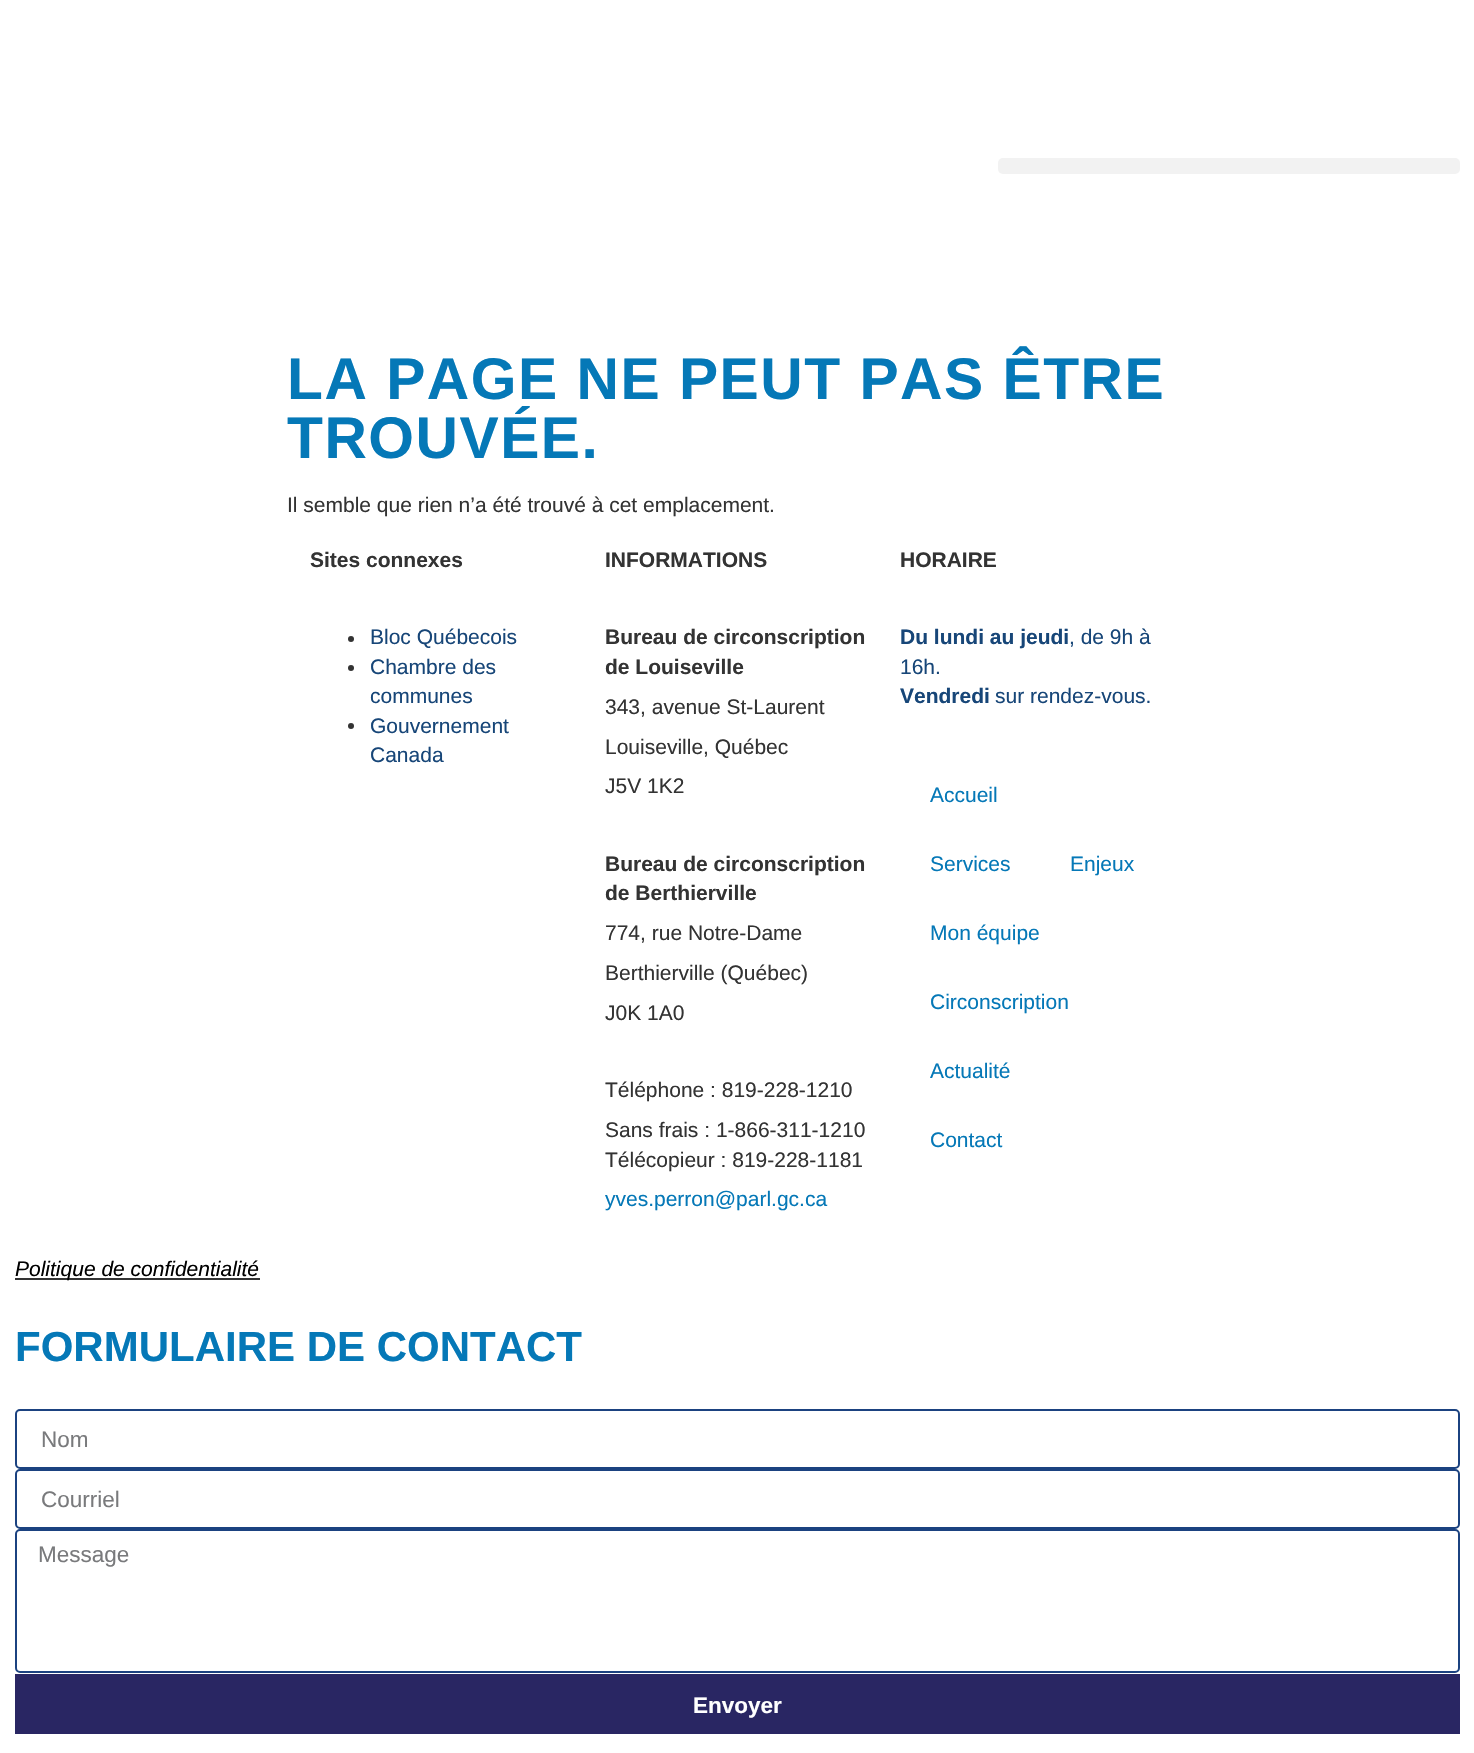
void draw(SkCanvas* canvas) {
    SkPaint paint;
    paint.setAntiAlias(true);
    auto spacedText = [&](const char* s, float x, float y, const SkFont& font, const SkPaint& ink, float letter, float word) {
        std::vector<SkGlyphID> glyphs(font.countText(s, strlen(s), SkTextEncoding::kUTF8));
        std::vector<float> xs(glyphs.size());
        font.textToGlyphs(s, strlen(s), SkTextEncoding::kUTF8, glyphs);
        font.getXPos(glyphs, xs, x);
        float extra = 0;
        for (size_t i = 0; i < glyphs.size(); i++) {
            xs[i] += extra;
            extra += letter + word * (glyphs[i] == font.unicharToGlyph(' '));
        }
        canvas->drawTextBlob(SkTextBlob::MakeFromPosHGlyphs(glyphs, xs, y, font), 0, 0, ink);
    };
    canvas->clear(0xFFFFFFFF);
    paint.setColor(0xFFF2F2F2);
    canvas->drawRoundRect(SkRect::MakeXYWH(998, 158, 462, 16), 5, 5, paint);
    SkFont font1(fontMgr->matchFamilyStyle("Liberation Sans", SkFontStyle::Bold()), 58.75f);
    font1.setSubpixel(true);
    paint.setColor(0xFF0578B7);
    spacedText("LA PAGE NE PEUT PAS ÊTRE", 287, 399, font1, paint, 1.5f, 0);
    spacedText("TROUVÉE.", 287, 458, font1, paint, 1.5f, 0);
    SkFont font2(fontMgr->matchFamilyStyle("Liberation Sans", SkFontStyle::Normal()), 21);
    font2.setSubpixel(true);
    paint.setColor(0xFF333333);
    canvas->drawString("Il semble que rien n’a été trouvé à cet emplacement.", 287, 512, font2, paint);
    SkFont font3(fontMgr->matchFamilyStyle("Liberation Sans", SkFontStyle::Bold()), 21);
    font3.setSubpixel(true);
    canvas->drawString("Sites connexes", 310, 567, font3, paint);
    canvas->drawCircle(351, 639, 3, paint);
    paint.setColor(0xFF174678);
    canvas->drawString("Bloc Québecois", 370, 644, font2, paint);
    paint.setColor(0xFF333333);
    canvas->drawCircle(351, 668, 3, paint);
    paint.setColor(0xFF174678);
    canvas->drawString("Chambre des", 370, 674, font2, paint);
    canvas->drawString("communes", 370, 703, font2, paint);
    paint.setColor(0xFF333333);
    canvas->drawCircle(351, 726, 3, paint);
    paint.setColor(0xFF174678);
    canvas->drawString("Gouvernement", 370, 733, font2, paint);
    canvas->drawString("Canada", 370, 762, font2, paint);
    paint.setColor(0xFF333333);
    canvas->drawString("INFORMATIONS", 605, 567, font3, paint);
    canvas->drawString("Bureau de circonscription", 605, 644, font3, paint);
    canvas->drawString("de Louiseville", 605, 674, font3, paint);
    canvas->drawString("343, avenue St-Laurent", 605, 714, font2, paint);
    canvas->drawString("Louiseville, Québec", 605, 754, font2, paint);
    canvas->drawString("J5V 1K2", 605, 793, font2, paint);
    canvas->drawString("Bureau de circonscription", 605, 871, font3, paint);
    canvas->drawString("de Berthierville", 605, 900, font3, paint);
    canvas->drawString("774, rue Notre-Dame", 605, 940, font2, paint);
    canvas->drawString("Berthierville (Québec)", 605, 980, font2, paint);
    canvas->drawString("J0K 1A0", 605, 1020, font2, paint);
    canvas->drawString("Téléphone : 819-228-1210", 605, 1097, font2, paint);
    canvas->drawString("Sans frais : 1-866-311-1210", 605, 1137, font2, paint);
    canvas->drawString("Télécopieur : 819-228-1181", 605, 1167, font2, paint);
    paint.setColor(0xFF0578B7);
    canvas->drawString("yves.perron@parl.gc.ca", 605, 1206, font2, paint);
    paint.setColor(0xFF333333);
    canvas->drawString("HORAIRE", 900, 567, font3, paint);
    paint.setColor(0xFF174678);
    canvas->drawString("Du lundi au jeudi", 900, 644, font3, paint);
    canvas->drawString(", de 9h à", 1069, 644, font2, paint);
    canvas->drawString("16h.", 900, 674, font2, paint);
    canvas->drawString("Vendredi", 900, 703, font3, paint);
    canvas->drawString("sur rendez-vous.", 995, 703, font2, paint);
    paint.setColor(0xFF0578B7);
    canvas->drawString("Accueil", 930, 802, font2, paint);
    canvas->drawString("Services", 930, 871, font2, paint);
    canvas->drawString("Enjeux", 1070, 871, font2, paint);
    canvas->drawString("Mon équipe", 930, 940, font2, paint);
    canvas->drawString("Circonscription", 930, 1009, font2, paint);
    canvas->drawString("Actualité", 930, 1078, font2, paint);
    canvas->drawString("Contact", 930, 1147, font2, paint);
    paint.setColor(0xFF333333);
    canvas->drawRect(SkRect::MakeXYWH(15, 1278, 245, 2), paint);
    SkFont font4(fontMgr->matchFamilyStyle("Liberation Sans", SkFontStyle::Italic()), 21);
    font4.setSubpixel(true);
    paint.setColor(0xFF000000);
    canvas->drawString("Politique de confidentialité", 15, 1276, font4, paint);
    SkFont font5(fontMgr->matchFamilyStyle("Liberation Sans", SkFontStyle::Bold()), 42);
    font5.setSubpixel(true);
    paint.setColor(0xFF0578B7);
    canvas->drawString("FORMULAIRE DE CONTACT", 15, 1361, font5, paint);
    paint.setStyle(SkPaint::kStroke_Style);
    paint.setStrokeWidth(2);
    paint.setColor(0xFF1B4280);
    canvas->drawRoundRect(SkRect::MakeXYWH(16, 1410, 1443, 58), 4, 4, paint);
    SkFont font6(fontMgr->matchFamilyStyle("Liberation Sans", SkFontStyle::Normal()), 22.5f);
    font6.setSubpixel(true);
    paint.setStyle(SkPaint::kFill_Style);
    paint.setColor(0xFF797A7C);
    canvas->drawString("Nom", 41, 1447, font6, paint);
    paint.setStyle(SkPaint::kStroke_Style);
    paint.setColor(0xFF1B4280);
    canvas->drawRoundRect(SkRect::MakeXYWH(16, 1470, 1443, 58), 4, 4, paint);
    paint.setStyle(SkPaint::kFill_Style);
    paint.setColor(0xFF797A7C);
    canvas->drawString("Courriel", 41, 1507, font6, paint);
    paint.setStyle(SkPaint::kStroke_Style);
    paint.setColor(0xFF1B4280);
    canvas->drawRoundRect(SkRect::MakeXYWH(16, 1530, 1443, 142), 4, 4, paint);
    paint.setStyle(SkPaint::kFill_Style);
    paint.setColor(0xFF797A7C);
    canvas->drawString("Message", 38, 1562, font6, paint);
    paint.setColor(0xFF292663);
    canvas->drawRect(SkRect::MakeXYWH(15, 1674, 1445, 60), paint);
    SkFont font7(fontMgr->matchFamilyStyle("Liberation Sans", SkFontStyle::Bold()), 22.5f);
    font7.setSubpixel(true);
    paint.setColor(0xFFFFFFFF);
    canvas->drawString("Envoyer", 693, 1713, font7, paint);
}
